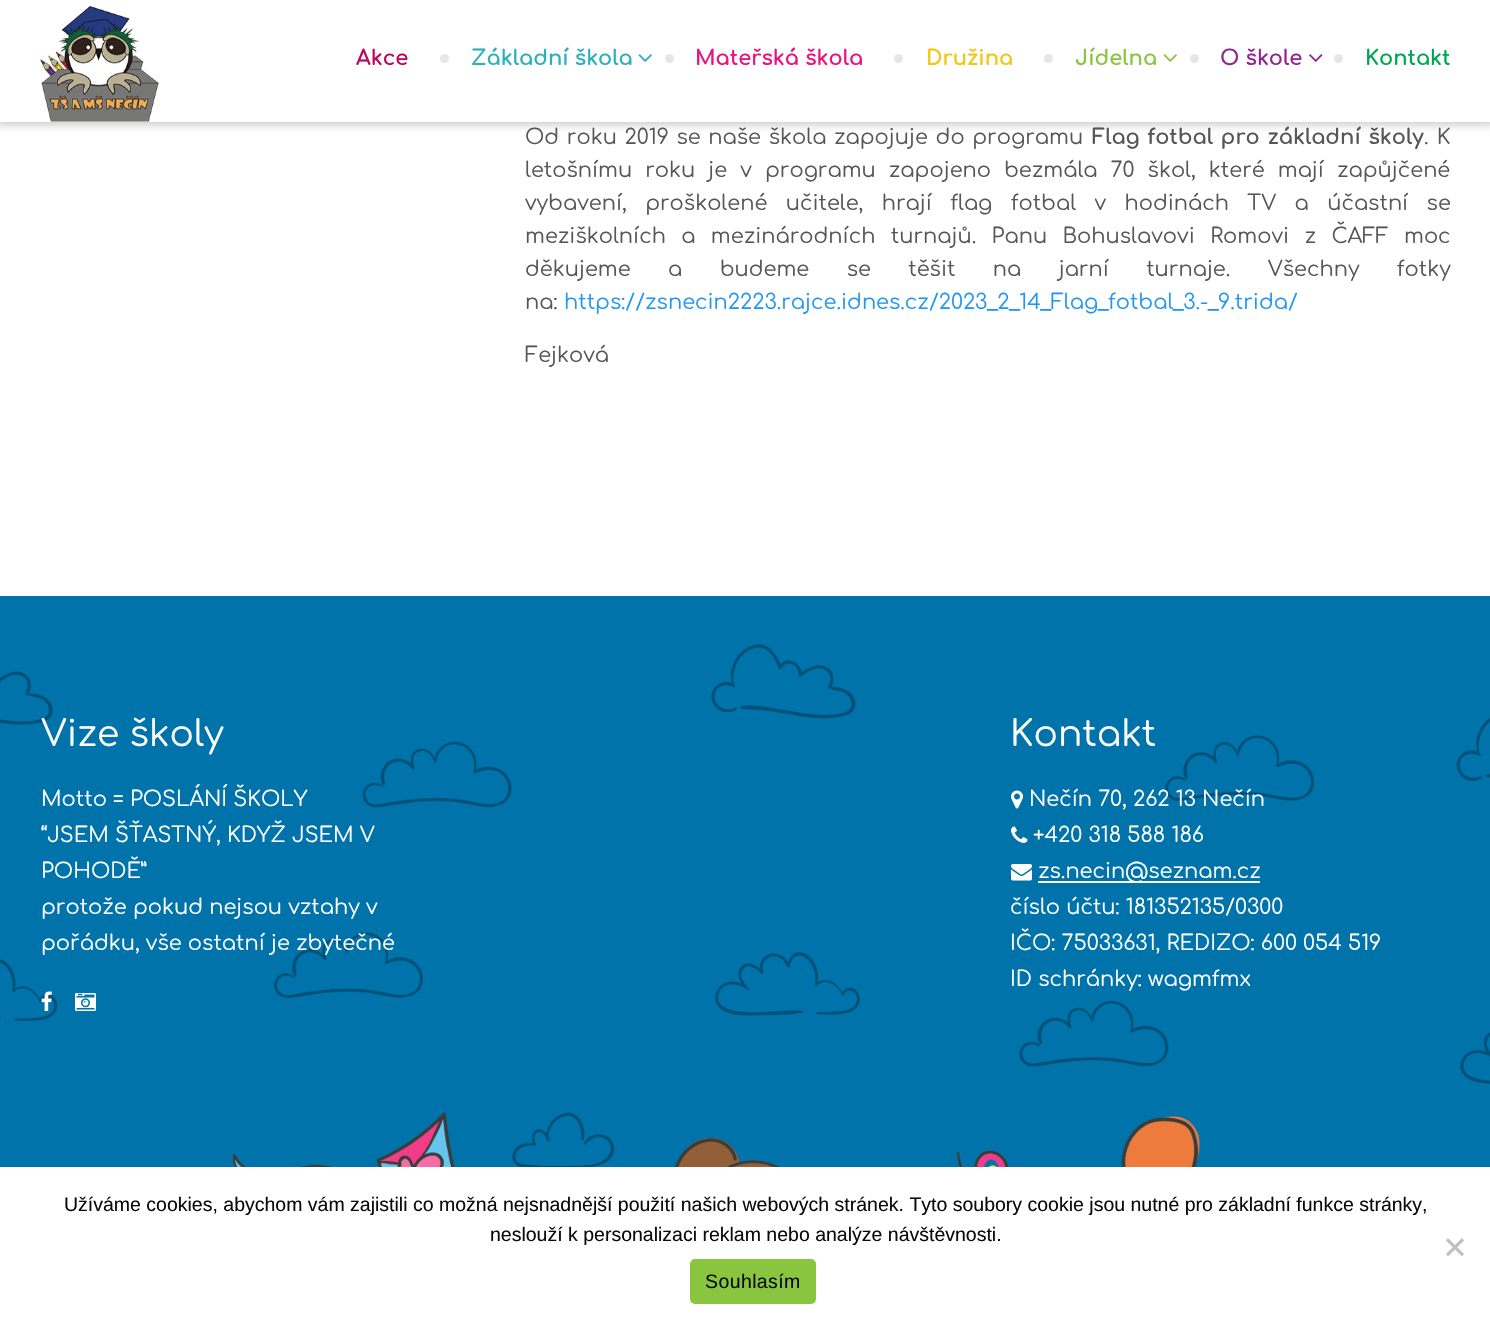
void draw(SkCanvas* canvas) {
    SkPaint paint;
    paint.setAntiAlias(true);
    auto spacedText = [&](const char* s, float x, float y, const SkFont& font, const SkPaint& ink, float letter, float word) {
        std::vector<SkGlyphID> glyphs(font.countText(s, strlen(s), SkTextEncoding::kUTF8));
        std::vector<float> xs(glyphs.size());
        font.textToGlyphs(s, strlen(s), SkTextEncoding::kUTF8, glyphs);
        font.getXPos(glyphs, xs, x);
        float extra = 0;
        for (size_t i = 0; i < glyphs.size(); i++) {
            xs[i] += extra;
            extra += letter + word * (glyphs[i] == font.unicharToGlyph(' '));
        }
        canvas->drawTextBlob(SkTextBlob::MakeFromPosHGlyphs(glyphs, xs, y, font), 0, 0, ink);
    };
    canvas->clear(0xFFFFFFFF);
    paint.setColor(0x33000000);
    paint.setMaskFilter(SkMaskFilter::MakeBlur(kNormal_SkBlurStyle, 4));
    canvas->drawRect(SkRect::MakeXYWH(-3, -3, 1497, 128), paint);
    paint.setMaskFilter(nullptr);
    paint.setColor(0xFFFFFFFF);
    canvas->drawRect(SkRect::MakeXYWH(0, 0, 1490, 122), paint);
    canvas->drawImageRect(SkImages::DeferredFromEncodedData(SkData::MakeFromFileName("img1.png")), SkRect::MakeXYWH(40, 6, 119, 116), SkSamplingOptions());
    SkFont font1(fontMgr->matchFamilyStyle("Comfortaa", SkFontStyle::Bold()), 21);
    font1.setSubpixel(true);
    paint.setColor(0xFFBF045B);
    canvas->drawString("Akce", 356, 65, font1, paint);
    paint.setColor(0xFFE6E6E6);
    canvas->drawCircle(444.5f, 58.5f, 4.5f, paint);
    paint.setColor(0xFF2AB0BA);
    canvas->drawString("Základní škola", 471, 65, font1, paint);
    canvas->drawImageRect(SkImages::DeferredFromEncodedData(SkData::MakeFromFileName("img2.png")), SkRect::MakeXYWH(638, 54, 14, 8), SkSamplingOptions());
    paint.setColor(0xFFE6E6E6);
    canvas->drawCircle(669.5f, 58.5f, 4.5f, paint);
    paint.setColor(0xFFED117D);
    canvas->drawString("Mateřská škola", 695, 65, font1, paint);
    paint.setColor(0xFFE6E6E6);
    canvas->drawCircle(898.5f, 58.5f, 4.5f, paint);
    paint.setColor(0xFFF1C712);
    canvas->drawString("Družina", 926, 65, font1, paint);
    paint.setColor(0xFFE6E6E6);
    canvas->drawCircle(1048.5f, 58.5f, 4.5f, paint);
    paint.setColor(0xFF8AC53F);
    canvas->drawString("Jídelna", 1075, 65, font1, paint);
    canvas->drawImageRect(SkImages::DeferredFromEncodedData(SkData::MakeFromFileName("img3.png")), SkRect::MakeXYWH(1163, 54, 14, 8), SkSamplingOptions());
    paint.setColor(0xFFE6E6E6);
    canvas->drawCircle(1194.5f, 58.5f, 4.5f, paint);
    paint.setColor(0xFF92278F);
    canvas->drawString("O škole", 1220, 65, font1, paint);
    canvas->drawImageRect(SkImages::DeferredFromEncodedData(SkData::MakeFromFileName("img4.png")), SkRect::MakeXYWH(1309, 54, 14, 8), SkSamplingOptions());
    paint.setColor(0xFFE6E6E6);
    canvas->drawCircle(1338.5f, 58.5f, 4.5f, paint);
    paint.setColor(0xFF00A651);
    canvas->drawString("Kontakt", 1365, 65, font1, paint);
    SkFont font2(fontMgr->matchFamilyStyle("Comfortaa", SkFontStyle::Normal()), 21);
    font2.setSubpixel(true);
    paint.setColor(0xFF565656);
    spacedText("Od roku 2019 se naše škola zapojuje do programu", 525, 144, font2, paint, 0, 1.5f);
    spacedText("Flag fotbal pro základní školy", 1092, 144, font1, paint, 0, 1.5f);
    spacedText(". K", 1424, 144, font2, paint, 0, 2);
    spacedText("letošnímu roku je v programu zapojeno bezmála 70 škol, které mají zapůjčené", 525, 177, font2, paint, 0, 6.9f);
    spacedText("vybavení, proškolené učitele, hrají flag fotbal v hodinách TV a účastní se", 525, 210, font2, paint, 0, 12.25f);
    spacedText("meziškolních a mezinárodních turnajů. Panu Bohuslavovi Romovi z ČAFF moc", 525, 243, font2, paint, 0, 9.25f);
    spacedText("děkujeme a budeme se těšit na jarní turnaje. Všechny fotky", 525, 276, font2, paint, 0, 31.25f);
    canvas->drawString("na:", 525, 309, font2, paint);
    paint.setColor(0xFF2196F3);
    canvas->drawString("https://zsnecin2223.rajce.idnes.cz/2023_2_14_Flag_fotbal_3.-_9.trida/", 564, 309, font2, paint);
    paint.setColor(0xFF565656);
    canvas->drawString("Fejková", 525, 362, font2, paint);
    paint.setColor(0xFF0073AA);
    canvas->drawRect(SkRect::MakeXYWH(0, 596, 1490, 571), paint);
    canvas->drawImageRect(SkImages::DeferredFromEncodedData(SkData::MakeFromFileName("img5.png")), SkRect::MakeXYWH(0, 644, 1490, 523), SkSamplingOptions());
    SkFont font3(fontMgr->matchFamilyStyle("Comfortaa", SkFontStyle::Normal()), 36);
    font3.setSubpixel(true);
    paint.setColor(0xFFFFFFFF);
    canvas->drawString("Vize školy", 41, 746, font3, paint);
    canvas->drawString("Motto = POSLÁNÍ ŠKOLY", 41, 806, font2, paint);
    canvas->drawString("“JSEM ŠŤASTNÝ, KDYŽ JSEM V", 41, 842, font2, paint);
    canvas->drawString("POHODĚ”", 41, 878, font2, paint);
    canvas->drawString("protože pokud nejsou vztahy v", 41, 914, font2, paint);
    canvas->drawString("pořádku, vše ostatní je zbytečné", 41, 950, font2, paint);
    canvas->drawImageRect(SkImages::DeferredFromEncodedData(SkData::MakeFromFileName("img6.png")), SkRect::MakeXYWH(41, 991, 11, 20), SkSamplingOptions());
    canvas->drawImageRect(SkImages::DeferredFromEncodedData(SkData::MakeFromFileName("img7.png")), SkRect::MakeXYWH(75, 993, 21, 18), SkSamplingOptions());
    canvas->drawString("Kontakt", 1010, 746, font3, paint);
    canvas->drawImageRect(SkImages::DeferredFromEncodedData(SkData::MakeFromFileName("img8.png")), SkRect::MakeXYWH(1011, 790, 12, 19), SkSamplingOptions());
    canvas->drawString("Nečín 70, 262 13 Nečín", 1029, 806, font2, paint);
    canvas->drawImageRect(SkImages::DeferredFromEncodedData(SkData::MakeFromFileName("img9.png")), SkRect::MakeXYWH(1011, 826, 17, 17), SkSamplingOptions());
    canvas->drawString("+420 318 588 186", 1033, 842, font2, paint);
    canvas->drawImageRect(SkImages::DeferredFromEncodedData(SkData::MakeFromFileName("img10.png")), SkRect::MakeXYWH(1011, 864, 21, 17), SkSamplingOptions());
    canvas->drawRect(SkRect::MakeXYWH(1038, 881, 222, 2), paint);
    canvas->drawString("zs.necin@seznam.cz", 1038, 878, font2, paint);
    canvas->drawString("číslo účtu: 181352135/0300", 1010, 914, font2, paint);
    canvas->drawString("IČO: 75033631, REDIZO: 600 054 519", 1010, 950, font2, paint);
    canvas->drawString("ID schránky: wagmfmx", 1010, 986, font2, paint);
    SkFont font4(fontMgr->matchFamilyStyle("Liberation Sans", SkFontStyle::Normal()), 19.5f);
    font4.setSubpixel(true);
    paint.setColor(0xFF0A0A0A);
    canvas->drawString("Užíváme cookies, abychom vám zajistili co možná nejsnadnější použití našich webových stránek. Tyto soubory cookie jsou nutné pro základní funkce stránky,", 64, 1211, font4, paint);
    canvas->drawString("neslouží k personalizaci reklam nebo analýze návštěvnosti.", 490, 1241, font4, paint);
    paint.setColor(0xFFC0C0C0);
    canvas->drawPath(SkPathBuilder().moveTo(1462, 1238).lineTo(1464, 1240.5f).lineTo(1448, 1256.5f).lineTo(1446, 1254).close().detach(), paint);
    canvas->drawPath(SkPathBuilder().moveTo(1446, 1240.5f).lineTo(1448, 1238).lineTo(1464, 1254).lineTo(1462, 1256.5f).close().detach(), paint);
    paint.setColor(0xFF8AC53F);
    canvas->drawRoundRect(SkRect::MakeXYWH(690, 1259, 126, 45), 5, 5, paint);
    paint.setColor(0xFF0A0A0A);
    spacedText("Souhlasím", 705, 1288, font4, paint, 0.4f, 0);
}
